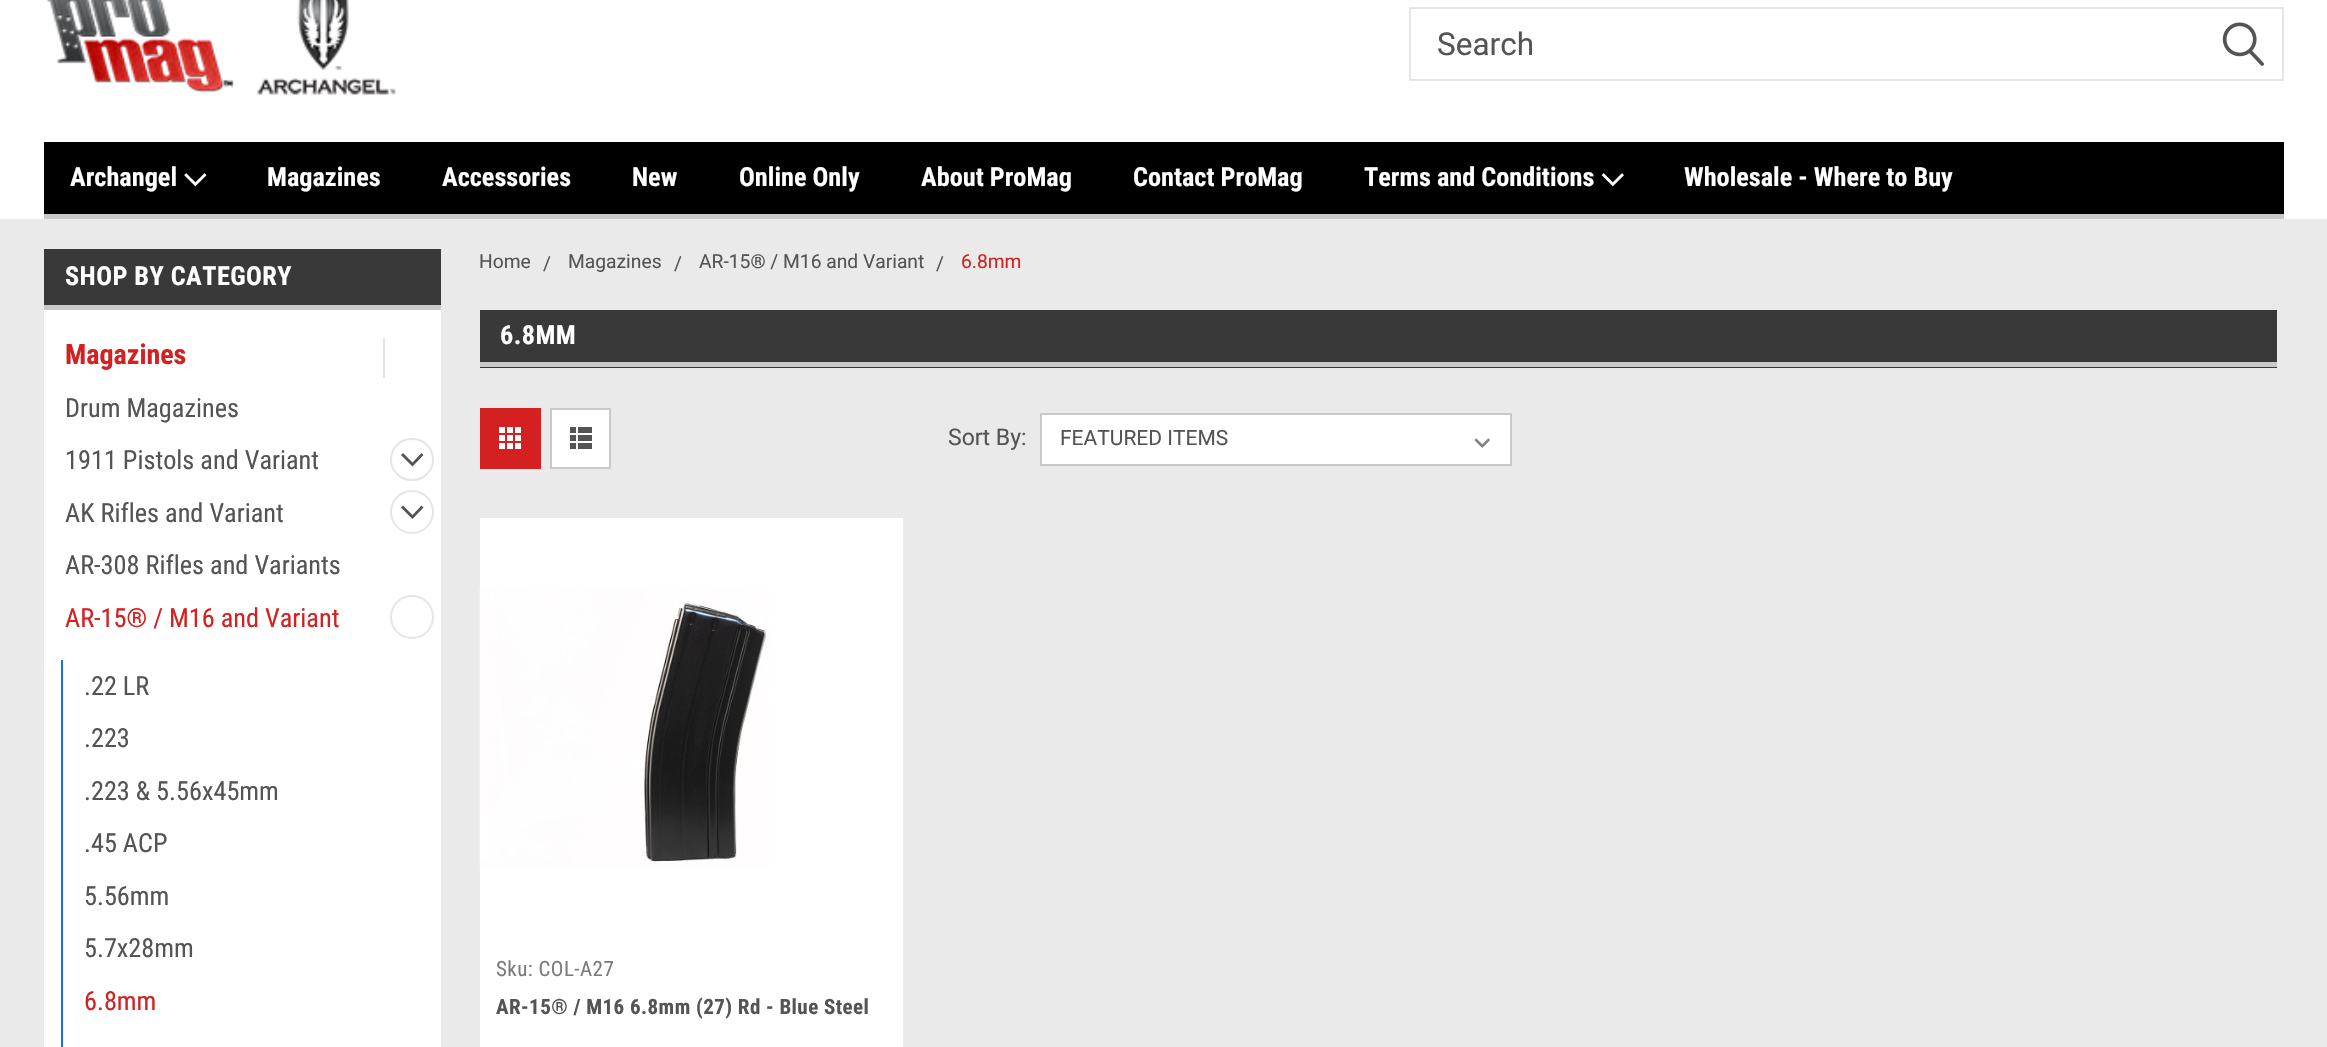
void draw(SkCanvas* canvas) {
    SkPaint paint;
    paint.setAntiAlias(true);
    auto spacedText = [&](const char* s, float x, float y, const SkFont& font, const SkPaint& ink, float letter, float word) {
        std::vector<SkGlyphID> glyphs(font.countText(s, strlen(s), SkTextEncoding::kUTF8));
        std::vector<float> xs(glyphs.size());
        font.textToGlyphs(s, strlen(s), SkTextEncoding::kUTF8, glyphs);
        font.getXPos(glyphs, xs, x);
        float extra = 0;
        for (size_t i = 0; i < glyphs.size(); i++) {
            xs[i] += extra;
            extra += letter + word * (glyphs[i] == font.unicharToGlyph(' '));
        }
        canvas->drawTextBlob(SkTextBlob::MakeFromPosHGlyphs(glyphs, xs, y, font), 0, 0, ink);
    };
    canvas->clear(0xFFEAEAEA);
    paint.setColor(0xFFFFFFFF);
    canvas->drawRect(SkRect::MakeXYWH(0, 0, 2327, 219), paint);
    canvas->drawImageRect(SkImages::DeferredFromEncodedData(SkData::MakeFromFileName("img1.png")), SkRect::MakeXYWH(47, 0, 349, 95), SkSamplingOptions());
    paint.setStyle(SkPaint::kStroke_Style);
    paint.setStrokeWidth(2);
    paint.setColor(0xFFE5E5E5);
    canvas->drawRect(SkRect::MakeXYWH(1410, 8, 873, 72), paint);
    SkFont font1(fontMgr->matchFamilyStyle("Roboto", SkFontStyle::Normal()), 31.5f);
    font1.setSubpixel(true);
    paint.setStyle(SkPaint::kFill_Style);
    paint.setColor(0xFF545454);
    canvas->drawString("Search", 1437, 55, font1, paint);
    canvas->drawImageRect(SkImages::DeferredFromEncodedData(SkData::MakeFromFileName("img2.png")), SkRect::MakeXYWH(2222, 22, 42, 44), SkSamplingOptions());
    paint.setColor(0xFF000000);
    canvas->drawRect(SkRect::MakeXYWH(44, 142, 2240, 72), paint);
    paint.setColor(0xFFC9C9C9);
    canvas->drawRect(SkRect::MakeXYWH(44, 214, 2240, 5), paint);
    SkFont font2(fontMgr->matchFamilyStyle("Roboto Condensed", SkFontStyle::Bold()), 26.25f);
    font2.setSubpixel(true);
    paint.setColor(0xFFFFFFFF);
    canvas->drawString("Archangel", 70, 186, font2, paint);
    canvas->drawImageRect(SkImages::DeferredFromEncodedData(SkData::MakeFromFileName("img3.png")), SkRect::MakeXYWH(184, 173, 23, 14), SkSamplingOptions());
    canvas->drawString("Magazines", 267, 186, font2, paint);
    canvas->drawString("Accessories", 442, 186, font2, paint);
    canvas->drawString("New", 632, 186, font2, paint);
    canvas->drawString("Online Only", 739, 186, font2, paint);
    canvas->drawString("About ProMag", 921, 186, font2, paint);
    canvas->drawString("Contact ProMag", 1133, 186, font2, paint);
    canvas->drawString("Terms and Conditions", 1364, 186, font2, paint);
    canvas->drawImageRect(SkImages::DeferredFromEncodedData(SkData::MakeFromFileName("img4.png")), SkRect::MakeXYWH(1601, 173, 23, 14), SkSamplingOptions());
    canvas->drawString("Wholesale - Where to Buy", 1684, 186, font2, paint);
    paint.setColor(0xFF393939);
    canvas->drawRect(SkRect::MakeXYWH(44, 249, 397, 56), paint);
    paint.setColor(0xFFC9C9C9);
    canvas->drawRect(SkRect::MakeXYWH(44, 305, 404, 5), paint);
    paint.setColor(0xFFFFFFFF);
    spacedText("SHOP BY CATEGORY", 65, 285, font2, paint, 0.45f, 0);
    canvas->drawRect(SkRect::MakeXYWH(44, 310, 397, 737), paint);
    SkFont font3(fontMgr->matchFamilyStyle("Roboto Condensed", SkFontStyle::Bold()), 28);
    font3.setSubpixel(true);
    paint.setColor(0xFFD42020);
    canvas->drawString("Magazines", 65, 364, font3, paint);
    paint.setColor(0xFFE5E5E5);
    canvas->drawRect(SkRect::MakeXYWH(383, 338, 2, 40), paint);
    SkFont font4(fontMgr->matchFamilyStyle("Roboto Condensed", SkFontStyle::Normal()), 26.25f);
    font4.setSubpixel(true);
    paint.setColor(0xFF545454);
    canvas->drawString("Drum Magazines", 65, 417, font4, paint);
    canvas->drawString("1911 Pistols and Variant", 65, 469, font4, paint);
    paint.setStyle(SkPaint::kStroke_Style);
    paint.setColor(0xFFE5E5E5);
    canvas->drawRoundRect(SkRect::MakeXYWH(391, 439, 42, 41), 20.5f, 20.5f, paint);
    paint.setStyle(SkPaint::kFill_Style);
    paint.setColor(0xFF545454);
    canvas->drawPath(SkPathBuilder().moveTo(423.5f, 455).lineTo(412.5f, 466.5f).lineTo(401, 455).lineTo(403, 453).lineTo(412.5f, 462.5f).lineTo(421.5f, 453).close().detach(), paint);
    canvas->drawString("AK Rifles and Variant", 65, 522, font4, paint);
    paint.setStyle(SkPaint::kStroke_Style);
    paint.setColor(0xFFE5E5E5);
    canvas->drawCircle(412, 512, 21, paint);
    paint.setStyle(SkPaint::kFill_Style);
    paint.setColor(0xFF545454);
    canvas->drawPath(SkPathBuilder().moveTo(423.5f, 507.5f).lineTo(412.5f, 519).lineTo(401, 507.5f).lineTo(403, 505.5f).lineTo(412.5f, 515).lineTo(421.5f, 505.5f).close().detach(), paint);
    canvas->drawString("AR-308 Rifles and Variants", 65, 574, font4, paint);
    paint.setColor(0xFFD42020);
    canvas->drawString("AR-15® / M16 and Variant", 65, 627, font4, paint);
    paint.setStyle(SkPaint::kStroke_Style);
    paint.setColor(0xFFE5E5E5);
    canvas->drawCircle(412, 617, 21, paint);
    paint.setStyle(SkPaint::kFill_Style);
    paint.setColor(0xFF1473E6);
    canvas->drawRect(SkRect::MakeXYWH(61, 660, 2, 387), paint);
    paint.setColor(0xFF545454);
    canvas->drawString(".22 LR", 84, 695, font4, paint);
    canvas->drawString(".223", 84, 747, font4, paint);
    canvas->drawString(".223 & 5.56x45mm", 84, 800, font4, paint);
    canvas->drawString(".45 ACP", 84, 852, font4, paint);
    canvas->drawString("5.56mm", 84, 905, font4, paint);
    canvas->drawString("5.7x28mm", 84, 957, font4, paint);
    paint.setColor(0xFFD42020);
    canvas->drawString("6.8mm", 84, 1010, font4, paint);
    paint.setColor(0xFFEAEAEA);
    canvas->drawRect(SkRect::MakeXYWH(441, 305, 7, 5), paint);
    SkFont font5(fontMgr->matchFamilyStyle("Roboto", SkFontStyle::Normal()), 19.25f);
    font5.setSubpixel(true);
    paint.setColor(0xFF545454);
    canvas->drawString("Home", 479, 268, font5, paint);
    canvas->drawString("/", 543, 270, font5, paint);
    canvas->drawString("Magazines", 568, 268, font5, paint);
    canvas->drawString("/", 674, 270, font5, paint);
    canvas->drawString("AR-15® / M16 and Variant", 699, 268, font5, paint);
    canvas->drawString("/", 936, 270, font5, paint);
    paint.setColor(0xFFD42020);
    canvas->drawString("6.8mm", 961, 268, font5, paint);
    paint.setColor(0xFF393939);
    canvas->drawRect(SkRect::MakeXYWH(480, 310, 1797, 58), paint);
    paint.setColor(0xFFC9C9C9);
    canvas->drawRect(SkRect::MakeXYWH(480, 362, 1797, 5), paint);
    paint.setColor(0xFFFFFFFF);
    spacedText("6.8MM", 500, 344, font2, paint, 0.45f, 0);
    paint.setColor(0xFFD42020);
    canvas->drawRect(SkRect::MakeXYWH(480, 408, 61, 61), paint);
    canvas->drawImageRect(SkImages::DeferredFromEncodedData(SkData::MakeFromFileName("img5.png")), SkRect::MakeXYWH(499, 427, 22, 22), SkSamplingOptions());
    paint.setColor(0xFFFFFFFF);
    canvas->drawRect(SkRect::MakeXYWH(551, 409, 59, 59), paint);
    paint.setStyle(SkPaint::kStroke_Style);
    paint.setColor(0xFFC9C9C9);
    canvas->drawRect(SkRect::MakeXYWH(551, 409, 59, 59), paint);
    canvas->drawImageRect(SkImages::DeferredFromEncodedData(SkData::MakeFromFileName("img6.png")), SkRect::MakeXYWH(570, 427, 22, 22), SkSamplingOptions());
    SkFont font6(fontMgr->matchFamilyStyle("Roboto", SkFontStyle::Normal()), 23);
    font6.setSubpixel(true);
    paint.setStyle(SkPaint::kFill_Style);
    paint.setColor(0xFF545454);
    canvas->drawString("Sort By:", 948, 445, font6, paint);
    paint.setColor(0xFFFFFFFF);
    canvas->drawRect(SkRect::MakeXYWH(1042, 415, 468, 49), paint);
    canvas->drawImageRect(SkImages::DeferredFromEncodedData(SkData::MakeFromFileName("img7.png")), SkRect::MakeXYWH(1474, 438, 16, 10), SkSamplingOptions());
    paint.setStyle(SkPaint::kStroke_Style);
    paint.setColor(0xFFC9C9C9);
    canvas->drawRect(SkRect::MakeXYWH(1041, 414, 470, 51), paint);
    SkFont font7(fontMgr->matchFamilyStyle("Roboto", SkFontStyle::Normal()), 21);
    font7.setSubpixel(true);
    paint.setStyle(SkPaint::kFill_Style);
    paint.setColor(0xFF545454);
    canvas->drawString("FEATURED ITEMS", 1060, 445, font7, paint);
    paint.setColor(0xFFFFFFFF);
    canvas->drawRect(SkRect::MakeXYWH(480, 518, 423, 529), paint);
    canvas->drawImageRect(SkImages::DeferredFromEncodedData(SkData::MakeFromFileName("img8.png")), SkRect::MakeXYWH(479, 588, 292, 281), SkSamplingOptions());
    SkFont font8(fontMgr->matchFamilyStyle("Roboto Condensed", SkFontStyle::Normal()), 21);
    font8.setSubpixel(true);
    paint.setColor(0xFF7B7B7B);
    spacedText("Sku: COL-A27", 496, 976, font8, paint, 0.45f, 0);
    SkFont font9(fontMgr->matchFamilyStyle("Roboto Condensed", SkFontStyle::Bold()), 21);
    font9.setSubpixel(true);
    paint.setColor(0xFF545454);
    spacedText("AR-15® / M16 6.8mm (27) Rd - Blue Steel", 496, 1014, font9, paint, 0.45f, 0);
}
